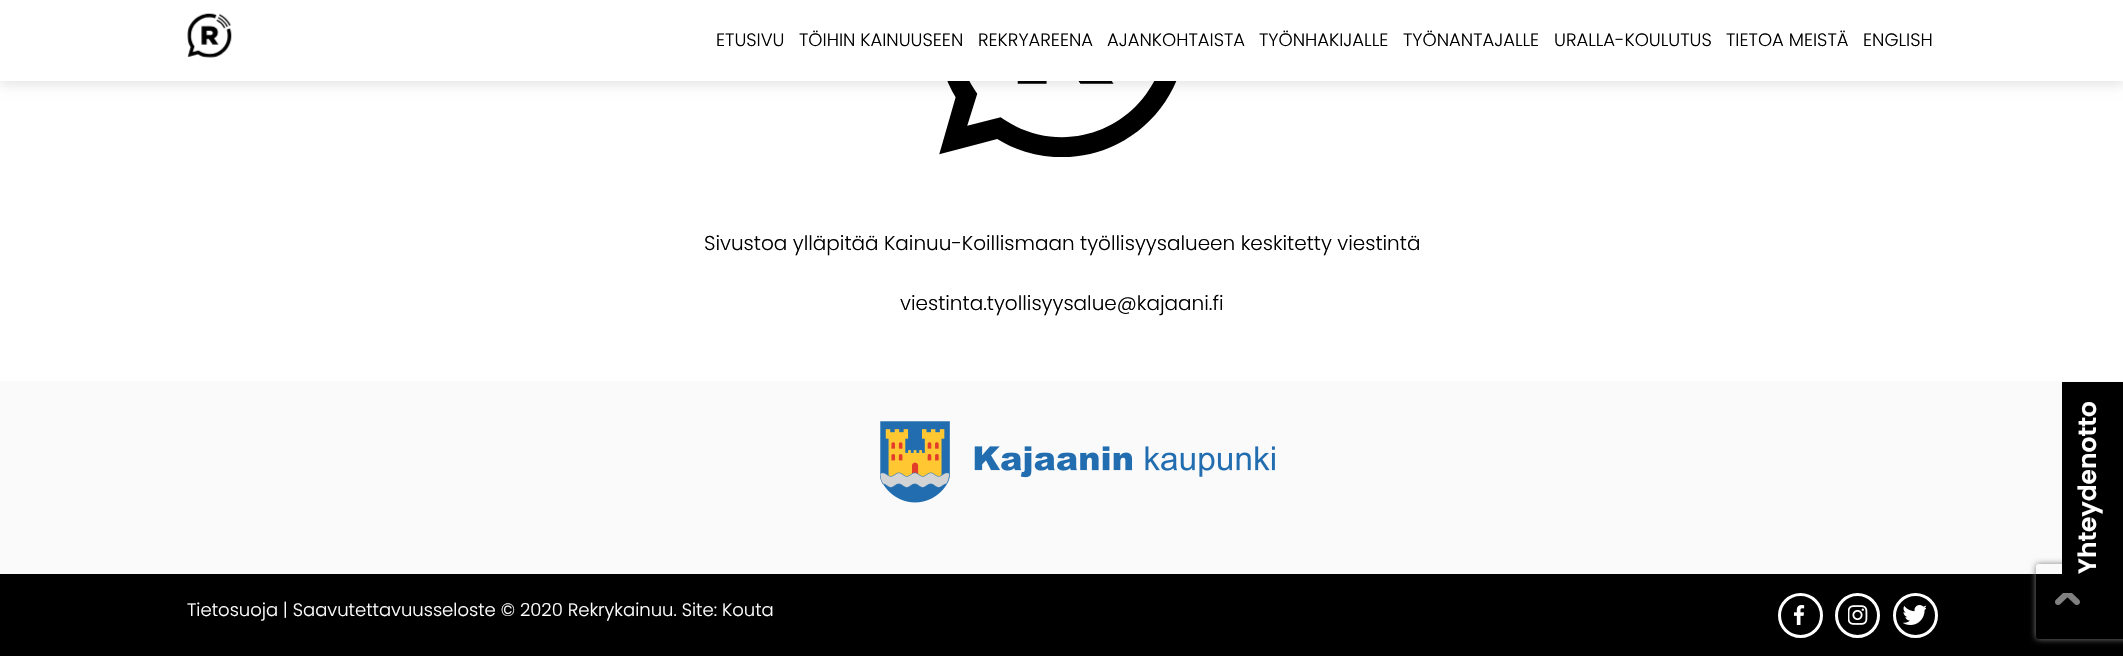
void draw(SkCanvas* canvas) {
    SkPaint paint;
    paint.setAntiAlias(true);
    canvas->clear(0xFFFFFFFF);
    canvas->drawImageRect(SkImages::DeferredFromEncodedData(SkData::MakeFromFileName("img2.png")), SkRect::MakeXYWH(939, 81, 238, 76), SkSamplingOptions());
    paint.setColor(0x1A000000);
    paint.setMaskFilter(SkMaskFilter::MakeBlur(kNormal_SkBlurStyle, 5.5f));
    canvas->drawRect(SkRect::MakeXYWH(0, 4, 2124, 81), paint);
    paint.setMaskFilter(nullptr);
    paint.setColor(0xFFFFFFFF);
    canvas->drawRect(SkRect::MakeXYWH(0, 0, 2123, 81), paint);
    canvas->drawImageRect(SkImages::DeferredFromEncodedData(SkData::MakeFromFileName("img1.png")), SkRect::MakeXYWH(187, 13, 45, 45), SkSamplingOptions());
    SkFont font1(fontMgr->matchFamilyStyle("Poppins", SkFontStyle(300, SkFontStyle::kNormal_Width, SkFontStyle::kUpright_Slant)), 18);
    font1.setSubpixel(true);
    paint.setColor(0xFF000000);
    canvas->drawString("ETUSIVU", 716, 46, font1, paint);
    canvas->drawString("TÖIHIN KAINUUSEEN", 799, 46, font1, paint);
    canvas->drawString("REKRYAREENA", 978, 46, font1, paint);
    canvas->drawString("AJANKOHTAISTA", 1107, 46, font1, paint);
    canvas->drawString("TYÖNHAKIJALLE", 1259, 46, font1, paint);
    canvas->drawString("TYÖNANTAJALLE", 1403, 46, font1, paint);
    canvas->drawString("URALLA-KOULUTUS", 1554, 46, font1, paint);
    canvas->drawString("TIETOA MEISTÄ", 1726, 46, font1, paint);
    canvas->drawString("ENGLISH", 1863, 46, font1, paint);
    SkFont font2(fontMgr->matchFamilyStyle("Poppins", SkFontStyle(300, SkFontStyle::kNormal_Width, SkFontStyle::kUpright_Slant)), 20);
    font2.setSubpixel(true);
    canvas->drawString("Sivustoa ylläpitää Kainuu-Koillismaan työllisyysalueen keskitetty viestintä", 704, 250, font2, paint);
    canvas->drawString("viestinta.tyollisyysalue@kajaani.fi", 900, 310, font2, paint);
    paint.setColor(0xFFFAFAFA);
    canvas->drawRect(SkRect::MakeXYWH(0, 381, 2123, 193), paint);
    canvas->drawImageRect(SkImages::DeferredFromEncodedData(SkData::MakeFromFileName("img3.png")), SkRect::MakeXYWH(880, 421, 395, 82), SkSamplingOptions());
    paint.setColor(0xFF000000);
    canvas->drawRect(SkRect::MakeXYWH(0, 574, 2123, 82), paint);
    paint.setColor(0xFFFFFFFF);
    canvas->drawString("Tietosuoja | Saavutettavuusseloste © 2020 Rekrykainuu. Site: Kouta", 187, 616, font1, paint);
    paint.setStyle(SkPaint::kStroke_Style);
    paint.setStrokeWidth(3);
    canvas->drawCircle(1800.5f, 615.5f, 21, paint);
    canvas->drawImageRect(SkImages::DeferredFromEncodedData(SkData::MakeFromFileName("img4.png")), SkRect::MakeXYWH(1794, 605, 11, 20), SkSamplingOptions());
    canvas->drawCircle(1857.5f, 615.5f, 21, paint);
    canvas->drawImageRect(SkImages::DeferredFromEncodedData(SkData::MakeFromFileName("img5.png")), SkRect::MakeXYWH(1848, 605, 20, 20), SkSamplingOptions());
    canvas->drawCircle(1915.5f, 615.5f, 21, paint);
    canvas->drawImageRect(SkImages::DeferredFromEncodedData(SkData::MakeFromFileName("img6.png")), SkRect::MakeXYWH(1903, 605, 23, 20), SkSamplingOptions());
    canvas->save();
    canvas->clipPath(SkPathBuilder(SkPathFillType::kEvenOdd).moveTo(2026, 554).lineTo(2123, 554).lineTo(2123, 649).lineTo(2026, 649).close().moveTo(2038.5f, 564).lineTo(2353.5f, 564).cubicTo(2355, 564, 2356, 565, 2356, 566.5f).lineTo(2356, 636.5f).cubicTo(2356, 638, 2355, 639, 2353.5f, 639).lineTo(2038.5f, 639).cubicTo(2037, 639, 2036, 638, 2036, 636.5f).lineTo(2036, 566.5f).cubicTo(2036, 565, 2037, 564, 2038.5f, 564).close().detach(), true);
    paint.setStyle(SkPaint::kFill_Style);
    paint.setColor(0xFF808080);
    paint.setMaskFilter(SkMaskFilter::MakeBlur(kNormal_SkBlurStyle, 3));
    canvas->drawRoundRect(SkRect::MakeXYWH(2036, 564, 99, 75), 2.5f, 2.5f, paint);
    paint.setMaskFilter(nullptr);
    canvas->restore();
    paint.setColor(0xFF000000);
    canvas->drawRect(SkRect::MakeXYWH(2062, 382, 61, 192), paint);
    SkFont font3(fontMgr->matchFamilyStyle("Poppins", SkFontStyle(600, SkFontStyle::kNormal_Width, SkFontStyle::kUpright_Slant)), 25);
    font3.setSubpixel(true);
    paint.setColor(0xFFFFFFFF);
    canvas->save();
    canvas->rotate(-90, 2096, 574);
    canvas->drawString("Yhteydenotto", 2096, 574, font3, paint);
    canvas->restore();
    canvas->drawImageRect(SkImages::DeferredFromEncodedData(SkData::MakeFromFileName("img7.png")), SkRect::MakeXYWH(2055, 593, 25, 12), SkSamplingOptions());
}
